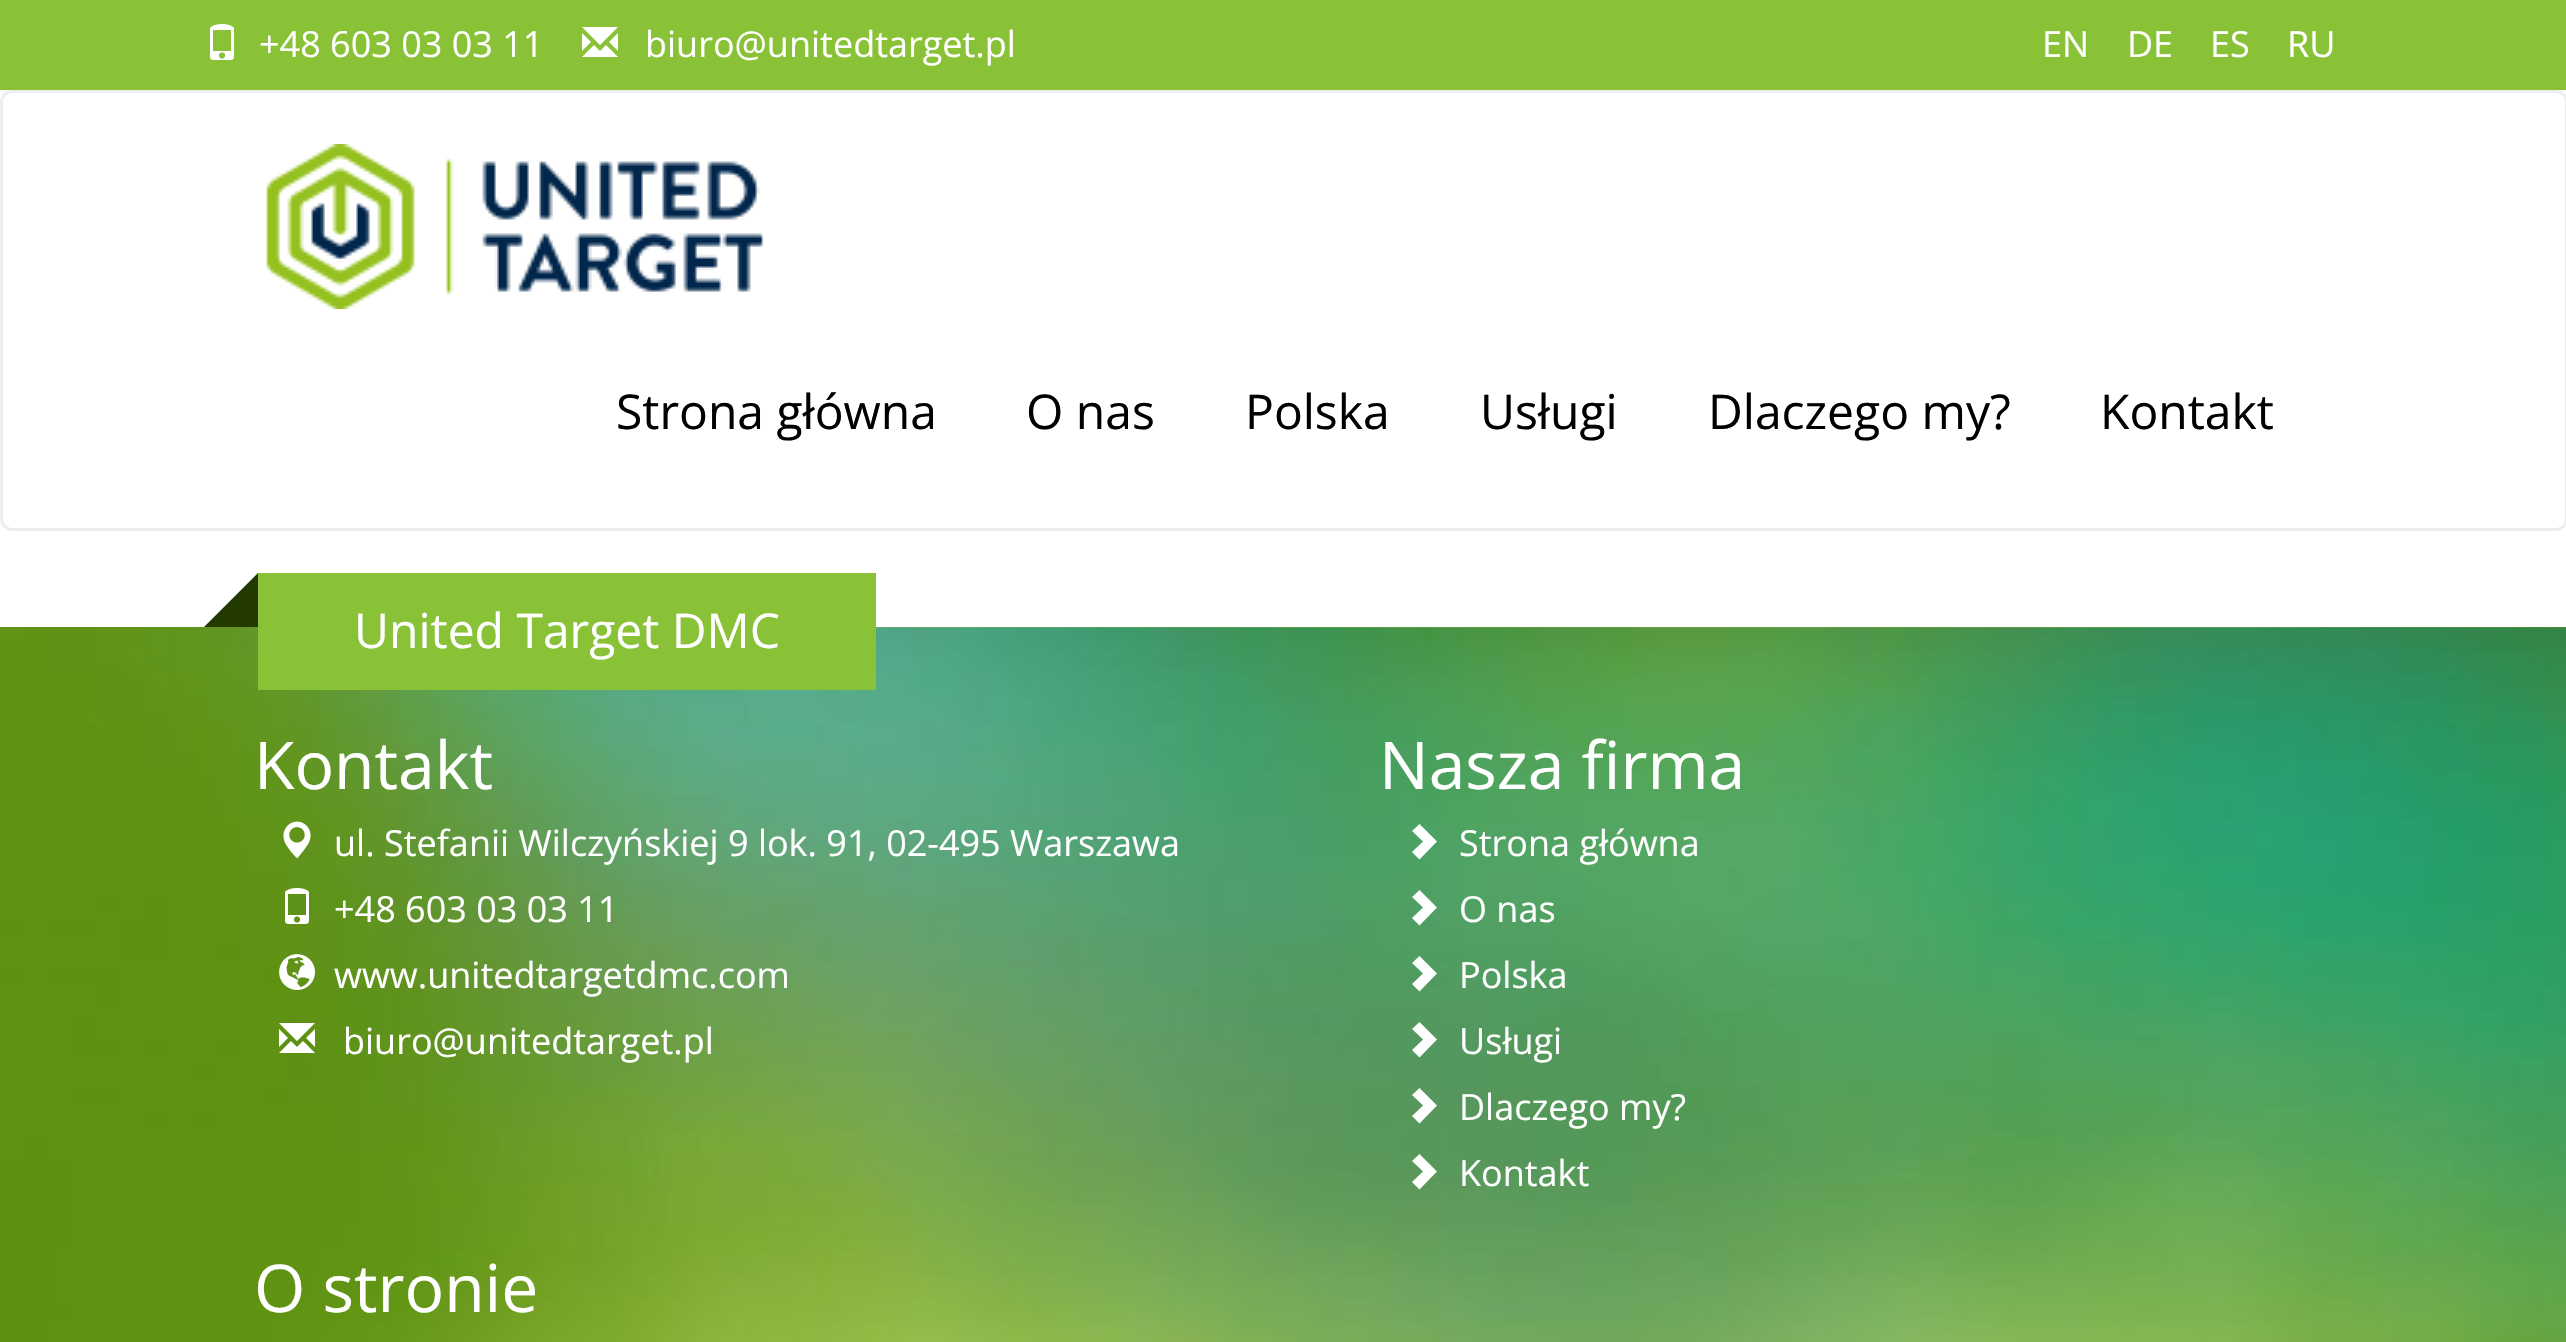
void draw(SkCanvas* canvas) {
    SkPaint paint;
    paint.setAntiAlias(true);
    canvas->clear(0xFFFFFFFF);
    paint.setColor(0xFF89C236);
    canvas->drawRect(SkRect::MakeXYWH(0, 0, 2566, 90), paint);
    canvas->drawImageRect(SkImages::DeferredFromEncodedData(SkData::MakeFromFileName("img1.png")), SkRect::MakeXYWH(210, 24, 24, 36), SkSamplingOptions());
    SkFont font1(fontMgr->matchFamilyStyle("Open Sans", SkFontStyle::Normal()), 36);
    font1.setSubpixel(true);
    paint.setColor(0xFFFFFFFF);
    canvas->drawString("+48 603 03 03 11", 259, 57, font1, paint);
    canvas->drawImageRect(SkImages::DeferredFromEncodedData(SkData::MakeFromFileName("img2.png")), SkRect::MakeXYWH(582, 27, 36, 30), SkSamplingOptions());
    canvas->drawString("biuro@unitedtarget.pl", 645, 57, font1, paint);
    canvas->drawString("EN", 2042, 57, font1, paint);
    canvas->drawString("DE", 2127, 57, font1, paint);
    canvas->drawString("ES", 2210, 57, font1, paint);
    canvas->drawString("RU", 2287, 57, font1, paint);
    paint.setStyle(SkPaint::kStroke_Style);
    paint.setStrokeWidth(3);
    paint.setColor(0xFFEEEEEE);
    canvas->drawRoundRect(SkRect::MakeXYWH(1.5f, 91.5f, 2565, 438), 10.5f, 10.5f, paint);
    canvas->drawImageRect(SkImages::DeferredFromEncodedData(SkData::MakeFromFileName("img3.png")), SkRect::MakeXYWH(266, 144, 497, 165), SkSamplingOptions());
    SkFont font2(fontMgr->matchFamilyStyle("Open Sans", SkFontStyle::Normal()), 48);
    font2.setSubpixel(true);
    paint.setStyle(SkPaint::kFill_Style);
    paint.setColor(0xFF000000);
    canvas->drawString("Strona główna", 616, 429, font2, paint);
    canvas->drawString("O nas", 1026, 429, font2, paint);
    canvas->drawString("Polska", 1245, 429, font2, paint);
    canvas->drawString("Usługi", 1480, 429, font2, paint);
    canvas->drawString("Dlaczego my?", 1708, 429, font2, paint);
    canvas->drawString("Kontakt", 2100, 429, font2, paint);
    canvas->drawImageRect(SkImages::DeferredFromEncodedData(SkData::MakeFromFileName("img4.png")), SkRect::MakeXYWH(0, 627, 2566, 715), SkSamplingOptions());
    paint.setColor(0xFF223900);
    canvas->drawPath(SkPathBuilder().moveTo(258, 627).lineTo(204, 627).lineTo(258, 573).close().detach(), paint);
    paint.setColor(0xFF89C236);
    canvas->drawRect(SkRect::MakeXYWH(258, 573, 618, 117), paint);
    paint.setColor(0xFFFFFFFF);
    canvas->drawString("United Target DMC", 354, 648, font2, paint);
    SkFont font3(fontMgr->matchFamilyStyle("Open Sans", SkFontStyle::Normal()), 66);
    font3.setSubpixel(true);
    canvas->drawString("Kontakt", 254, 789, font3, paint);
    canvas->drawImageRect(SkImages::DeferredFromEncodedData(SkData::MakeFromFileName("img5.png")), SkRect::MakeXYWH(283, 821, 28, 38), SkSamplingOptions());
    canvas->drawString("ul. Stefanii Wilczyńskiej 9 lok. 91, 02-495 Warszawa", 334, 856, font1, paint);
    canvas->drawImageRect(SkImages::DeferredFromEncodedData(SkData::MakeFromFileName("img6.png")), SkRect::MakeXYWH(285, 888, 24, 36), SkSamplingOptions());
    canvas->drawString("+48 603 03 03 11", 334, 922, font1, paint);
    canvas->drawImageRect(SkImages::DeferredFromEncodedData(SkData::MakeFromFileName("img7.png")), SkRect::MakeXYWH(279, 954, 36, 36), SkSamplingOptions());
    canvas->drawString("www.unitedtargetdmc.com", 334, 988, font1, paint);
    canvas->drawImageRect(SkImages::DeferredFromEncodedData(SkData::MakeFromFileName("img8.png")), SkRect::MakeXYWH(279, 1023, 36, 30), SkSamplingOptions());
    canvas->drawString("biuro@unitedtarget.pl", 343, 1054, font1, paint);
    canvas->drawString("Nasza firma", 1379, 789, font3, paint);
    canvas->drawPath(SkPathBuilder().moveTo(1412, 852).lineTo(1423, 841.5f).lineTo(1412, 831).lineTo(1419.5f, 824).lineTo(1437, 841.5f).lineTo(1419.5f, 859.5f).close().detach(), paint);
    canvas->drawString("Strona główna", 1459, 856, font1, paint);
    canvas->drawPath(SkPathBuilder().moveTo(1412, 918).lineTo(1423, 907.5f).lineTo(1412, 897).lineTo(1419.5f, 890).lineTo(1437, 907.5f).lineTo(1419.5f, 925.5f).close().detach(), paint);
    canvas->drawString("O nas", 1459, 922, font1, paint);
    canvas->drawPath(SkPathBuilder().moveTo(1412, 984).lineTo(1423, 973.5f).lineTo(1412, 963).lineTo(1419.5f, 956).lineTo(1437, 973.5f).lineTo(1419.5f, 991.5f).close().detach(), paint);
    canvas->drawString("Polska", 1459, 988, font1, paint);
    canvas->drawPath(SkPathBuilder().moveTo(1412, 1050).lineTo(1423, 1039.5f).lineTo(1412, 1029).lineTo(1419.5f, 1022).lineTo(1437, 1039.5f).lineTo(1419.5f, 1057.5f).close().detach(), paint);
    canvas->drawString("Usługi", 1459, 1054, font1, paint);
    canvas->drawPath(SkPathBuilder().moveTo(1412, 1116).lineTo(1423, 1105.5f).lineTo(1412, 1095).lineTo(1419.5f, 1088).lineTo(1437, 1105.5f).lineTo(1419.5f, 1123.5f).close().detach(), paint);
    canvas->drawString("Dlaczego my?", 1459, 1120, font1, paint);
    canvas->drawPath(SkPathBuilder().moveTo(1412, 1182).lineTo(1423, 1171.5f).lineTo(1412, 1161).lineTo(1419.5f, 1154).lineTo(1437, 1171.5f).lineTo(1419.5f, 1189.5f).close().detach(), paint);
    canvas->drawString("Kontakt", 1459, 1186, font1, paint);
    canvas->drawString("O stronie", 254, 1312, font3, paint);
}
